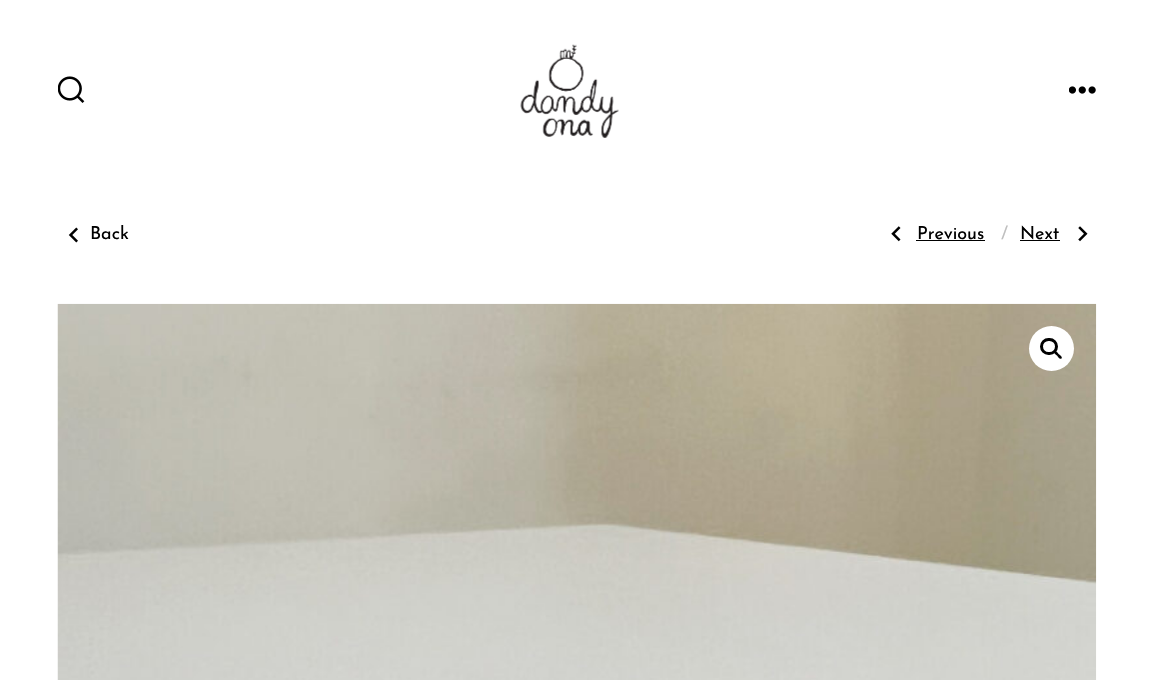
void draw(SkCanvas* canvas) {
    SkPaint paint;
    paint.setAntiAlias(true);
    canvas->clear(0xFFFFFFFF);
    canvas->drawImageRect(SkImages::DeferredFromEncodedData(SkData::MakeFromFileName("img1.png")), SkRect::MakeXYWH(58, 76, 27, 27), SkSamplingOptions());
    canvas->drawImageRect(SkImages::DeferredFromEncodedData(SkData::MakeFromFileName("img2.png")), SkRect::MakeXYWH(520, 44, 99, 94), SkSamplingOptions());
    canvas->drawImageRect(SkImages::DeferredFromEncodedData(SkData::MakeFromFileName("img3.png")), SkRect::MakeXYWH(1069, 86, 27, 8), SkSamplingOptions());
    canvas->drawImageRect(SkImages::DeferredFromEncodedData(SkData::MakeFromFileName("img4.png")), SkRect::MakeXYWH(68, 227, 10, 16), SkSamplingOptions());
    SkFont font1(fontMgr->matchFamilyStyle("Josefin Sans", SkFontStyle::Normal()), 18);
    font1.setSubpixel(true);
    paint.setColor(0xFF000000);
    canvas->drawString("Back", 90, 239, font1, paint);
    canvas->drawImageRect(SkImages::DeferredFromEncodedData(SkData::MakeFromFileName("img5.png")), SkRect::MakeXYWH(891, 226, 10, 16), SkSamplingOptions());
    canvas->drawString("Previous", 917, 239, font1, paint);
    canvas->drawRect(SkRect::MakeXYWH(916, 240, 69, 1), paint);
    paint.setColor(0xFFBFBFBF);
    canvas->drawString("/", 1001, 239, font1, paint);
    paint.setColor(0xFF000000);
    canvas->drawString("Next", 1020, 239, font1, paint);
    canvas->drawRect(SkRect::MakeXYWH(1020, 240, 40, 1), paint);
    canvas->drawImageRect(SkImages::DeferredFromEncodedData(SkData::MakeFromFileName("img6.png")), SkRect::MakeXYWH(1078, 226, 10, 16), SkSamplingOptions());
    canvas->drawImageRect(SkImages::DeferredFromEncodedData(SkData::MakeFromFileName("img7.png")), SkRect::MakeXYWH(57, 303, 1040, 377), SkSamplingOptions());
    paint.setColor(0xFFFFFFFF);
    canvas->drawCircle(1051.5f, 348.5f, 22.5f, paint);
    paint.setStyle(SkPaint::kStroke_Style);
    paint.setStrokeWidth(3);
    paint.setColor(0xFF000000);
    canvas->drawRoundRect(SkRect::MakeXYWH(1041.5f, 339.5f, 15, 14), 7, 7, paint);
    paint.setStyle(SkPaint::kFill_Style);
    canvas->drawPath(SkPathBuilder().moveTo(1054.5f, 351.5f).cubicTo(1055.5f, 350, 1058, 353, 1058.5f, 354).cubicTo(1059.5f, 354.5f, 1063, 357, 1061.5f, 358.5f).cubicTo(1060, 360, 1057.5f, 356.5f, 1057, 355.5f).cubicTo(1056, 355, 1053, 352.5f, 1054.5f, 351.5f).close().detach(), paint);
}
